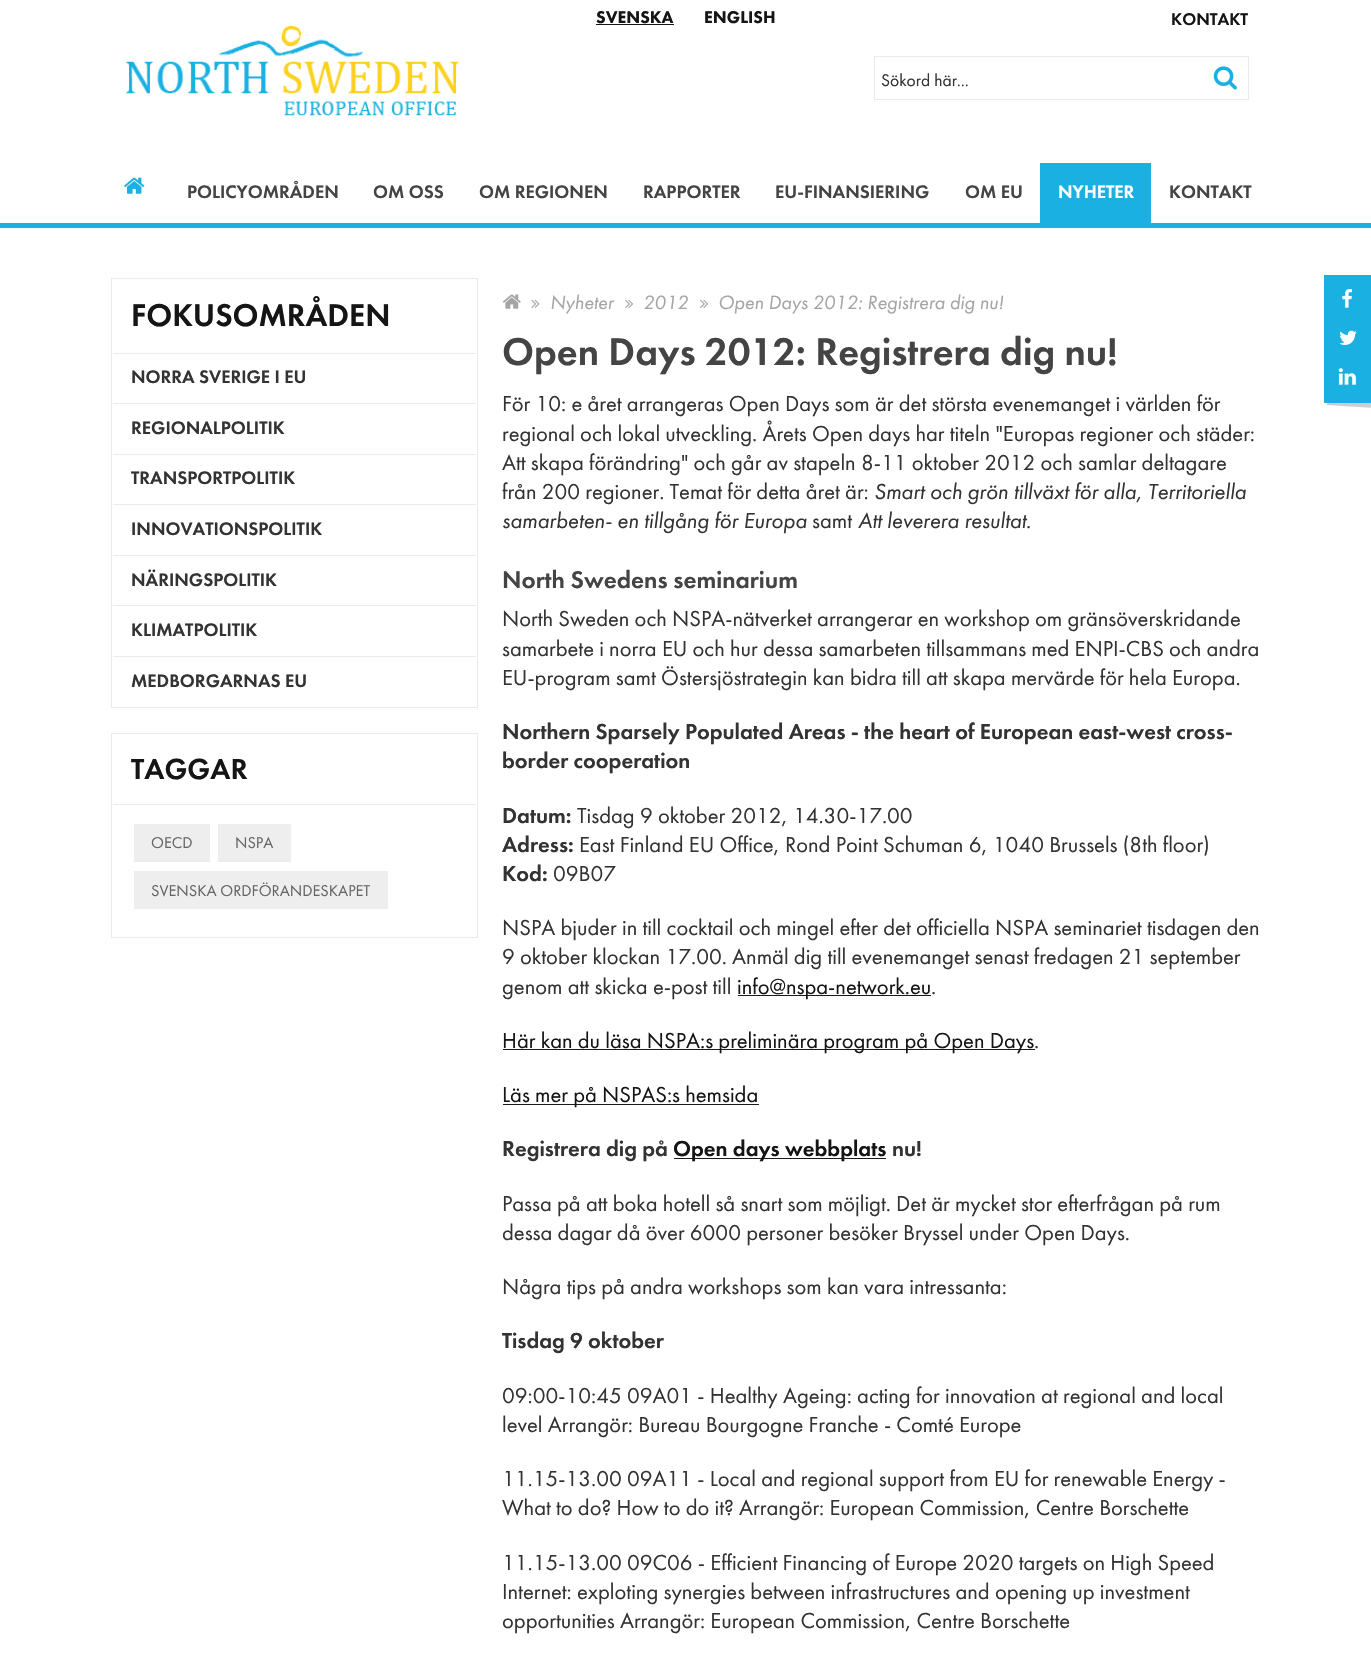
void draw(SkCanvas* canvas) {
    SkPaint paint;
    paint.setAntiAlias(true);
    canvas->clear(0xFFFFFFFF);
    SkFont font1(fontMgr->matchFamilyStyle("Futura PT", SkFontStyle(900, SkFontStyle::kNormal_Width, SkFontStyle::kUpright_Slant)), 17.5f);
    font1.setSubpixel(true);
    paint.setColor(0xFF151515);
    canvas->drawString("SVENSKA", 596, 23, font1, paint);
    canvas->drawRect(SkRect::MakeXYWH(596, 24, 78, 1), paint);
    canvas->drawString("ENGLISH", 704, 23, font1, paint);
    SkFont font2(fontMgr->matchFamilyStyle("Futura PT", SkFontStyle(500, SkFontStyle::kNormal_Width, SkFontStyle::kUpright_Slant)), 17.5f);
    font2.setSubpixel(true);
    canvas->drawString("KONTAKT", 1171, 25, font2, paint);
    paint.setColor(0xFFE6E6E6);
    canvas->drawPath(SkPathBuilder().moveTo(1336, 277).lineTo(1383, 281).lineTo(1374, 408).lineTo(1327, 405).close().detach(), paint);
    paint.setColor(0x1A000000);
    canvas->drawPath(SkPathBuilder().moveTo(1336, 277).lineTo(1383, 281).lineTo(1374, 408).lineTo(1327, 405).close().detach(), paint);
    paint.setColor(0xFF1AB1E2);
    canvas->drawRect(SkRect::MakeXYWH(1324, 275, 47, 128), paint);
    canvas->drawImageRect(SkImages::DeferredFromEncodedData(SkData::MakeFromFileName("img1.png")), SkRect::MakeXYWH(1342, 289, 10, 19), SkSamplingOptions());
    canvas->drawImageRect(SkImages::DeferredFromEncodedData(SkData::MakeFromFileName("img2.png")), SkRect::MakeXYWH(1339, 330, 18, 15), SkSamplingOptions());
    canvas->drawImageRect(SkImages::DeferredFromEncodedData(SkData::MakeFromFileName("img3.png")), SkRect::MakeXYWH(1338, 368, 18, 17), SkSamplingOptions());
    canvas->drawImageRect(SkImages::DeferredFromEncodedData(SkData::MakeFromFileName("img4.png")), SkRect::MakeXYWH(125, 25, 335, 91), SkSamplingOptions());
    paint.setStyle(SkPaint::kStroke_Style);
    paint.setStrokeWidth(1);
    paint.setColor(0xFFEAEAEA);
    canvas->drawRect(SkRect::MakeXYWH(874.5f, 56.5f, 374, 43), paint);
    SkFont font3(fontMgr->matchFamilyStyle("Futura PT", SkFontStyle::Normal()), 17.5f);
    font3.setSubpixel(true);
    paint.setStyle(SkPaint::kFill_Style);
    paint.setColor(0xFF333333);
    canvas->drawString("Sökord här...", 881, 86, font3, paint);
    canvas->drawImageRect(SkImages::DeferredFromEncodedData(SkData::MakeFromFileName("img5.png")), SkRect::MakeXYWH(1213, 66, 24, 24), SkSamplingOptions());
    paint.setColor(0xFF1AB1E2);
    canvas->drawRect(SkRect::MakeXYWH(0, 223, 1371, 5), paint);
    canvas->drawImageRect(SkImages::DeferredFromEncodedData(SkData::MakeFromFileName("img6.png")), SkRect::MakeXYWH(124, 177, 21, 17), SkSamplingOptions());
    SkFont font4(fontMgr->matchFamilyStyle("Futura PT", SkFontStyle(500, SkFontStyle::kNormal_Width, SkFontStyle::kUpright_Slant)), 18.75f);
    font4.setSubpixel(true);
    paint.setColor(0xFF444444);
    canvas->drawString("POLICYOMRÅDEN", 187, 198, font4, paint);
    canvas->drawString("OM OSS", 373, 198, font4, paint);
    canvas->drawString("OM REGIONEN", 479, 198, font4, paint);
    canvas->drawString("RAPPORTER", 643, 198, font4, paint);
    canvas->drawString("EU-FINANSIERING", 775, 198, font4, paint);
    canvas->drawString("OM EU", 965, 198, font4, paint);
    paint.setColor(0xFF1AB1E2);
    canvas->drawRect(SkRect::MakeXYWH(1040, 163, 111, 60), paint);
    paint.setColor(0xFFFFFFFF);
    canvas->drawString("NYHETER", 1058, 198, font4, paint);
    paint.setColor(0xFF444444);
    canvas->drawString("KONTAKT", 1169, 198, font4, paint);
    paint.setStyle(SkPaint::kStroke_Style);
    paint.setColor(0xFFEAEAEA);
    canvas->drawRect(SkRect::MakeXYWH(111.5f, 278.5f, 366, 429), paint);
    paint.setStyle(SkPaint::kFill_Style);
    canvas->drawRect(SkRect::MakeXYWH(113, 353, 363, 1), paint);
    SkFont font5(fontMgr->matchFamilyStyle("Futura PT", SkFontStyle(500, SkFontStyle::kNormal_Width, SkFontStyle::kUpright_Slant)), 32.5f);
    font5.setSubpixel(true);
    paint.setColor(0xFF151515);
    canvas->drawString("FOKUSOMRÅDEN", 131, 326, font5, paint);
    paint.setColor(0xFFEAEAEA);
    canvas->drawRect(SkRect::MakeXYWH(113, 403, 363, 1), paint);
    paint.setColor(0xFF333333);
    canvas->drawString("NORRA SVERIGE I EU", 131, 383, font4, paint);
    paint.setColor(0xFFEAEAEA);
    canvas->drawRect(SkRect::MakeXYWH(113, 454, 363, 1), paint);
    paint.setColor(0xFF333333);
    canvas->drawString("REGIONALPOLITIK", 131, 434, font4, paint);
    paint.setColor(0xFFEAEAEA);
    canvas->drawRect(SkRect::MakeXYWH(113, 504, 363, 1), paint);
    paint.setColor(0xFF333333);
    canvas->drawString("TRANSPORTPOLITIK", 131, 484, font4, paint);
    paint.setColor(0xFFEAEAEA);
    canvas->drawRect(SkRect::MakeXYWH(113, 555, 363, 1), paint);
    paint.setColor(0xFF333333);
    canvas->drawString("INNOVATIONSPOLITIK", 131, 535, font4, paint);
    paint.setColor(0xFFEAEAEA);
    canvas->drawRect(SkRect::MakeXYWH(113, 605, 363, 1), paint);
    paint.setColor(0xFF333333);
    canvas->drawString("NÄRINGSPOLITIK", 131, 586, font4, paint);
    paint.setColor(0xFFEAEAEA);
    canvas->drawRect(SkRect::MakeXYWH(113, 656, 363, 1), paint);
    paint.setColor(0xFF333333);
    canvas->drawString("KLIMATPOLITIK", 131, 636, font4, paint);
    canvas->drawString("MEDBORGARNAS EU", 131, 687, font4, paint);
    paint.setStyle(SkPaint::kStroke_Style);
    paint.setColor(0xFFEAEAEA);
    canvas->drawRect(SkRect::MakeXYWH(111.5f, 733.5f, 366, 204), paint);
    paint.setStyle(SkPaint::kFill_Style);
    canvas->drawRect(SkRect::MakeXYWH(113, 804, 363, 1), paint);
    SkFont font6(fontMgr->matchFamilyStyle("Futura PT", SkFontStyle(500, SkFontStyle::kNormal_Width, SkFontStyle::kUpright_Slant)), 30);
    font6.setSubpixel(true);
    paint.setColor(0xFF151515);
    canvas->drawString("TAGGAR", 131, 779, font6, paint);
    paint.setColor(0xFFEAEAEA);
    canvas->drawRect(SkRect::MakeXYWH(134, 861, 76, 1), paint);
    paint.setColor(0xFFEEEEEE);
    canvas->drawRect(SkRect::MakeXYWH(134, 824, 76, 37), paint);
    SkFont font7(fontMgr->matchFamilyStyle("Futura PT", SkFontStyle::Normal()), 16.25f);
    font7.setSubpixel(true);
    paint.setColor(0xFF666666);
    canvas->drawString("OECD", 151, 848, font7, paint);
    paint.setColor(0xFFEAEAEA);
    canvas->drawRect(SkRect::MakeXYWH(218, 861, 73, 1), paint);
    paint.setColor(0xFFEEEEEE);
    canvas->drawRect(SkRect::MakeXYWH(218, 824, 73, 37), paint);
    paint.setColor(0xFF666666);
    canvas->drawString("NSPA", 235, 848, font7, paint);
    paint.setColor(0xFFEEEEEE);
    canvas->drawRect(SkRect::MakeXYWH(134, 871, 254, 38), paint);
    paint.setColor(0xFF666666);
    canvas->drawString("SVENSKA ORDFÖRANDESKAPET", 151, 896, font7, paint);
    canvas->drawImageRect(SkImages::DeferredFromEncodedData(SkData::MakeFromFileName("img7.png")), SkRect::MakeXYWH(502, 294, 19, 15), SkSamplingOptions());
    canvas->drawImageRect(SkImages::DeferredFromEncodedData(SkData::MakeFromFileName("img8.png")), SkRect::MakeXYWH(531, 299, 9, 9), SkSamplingOptions());
    SkFont font8(fontMgr->matchFamilyStyle("Futura PT", SkFontStyle::Italic()), 20);
    font8.setSubpixel(true);
    paint.setColor(0xFFA5A5A5);
    canvas->drawString("Nyheter", 550, 309, font8, paint);
    canvas->drawImageRect(SkImages::DeferredFromEncodedData(SkData::MakeFromFileName("img9.png")), SkRect::MakeXYWH(625, 299, 9, 9), SkSamplingOptions());
    canvas->drawString("2012", 643, 309, font8, paint);
    canvas->drawImageRect(SkImages::DeferredFromEncodedData(SkData::MakeFromFileName("img9.png")), SkRect::MakeXYWH(700, 299, 9, 9), SkSamplingOptions());
    canvas->drawString("Open Days 2012: Registrera dig nu!", 718, 309, font8, paint);
    SkFont font9(fontMgr->matchFamilyStyle("Futura PT", SkFontStyle(500, SkFontStyle::kNormal_Width, SkFontStyle::kUpright_Slant)), 40);
    font9.setSubpixel(true);
    paint.setColor(0xFF444444);
    canvas->drawString("Open Days 2012: Registrera dig nu!", 502, 365, font9, paint);
    SkFont font10(fontMgr->matchFamilyStyle("Futura PT", SkFontStyle::Normal()), 22.5f);
    font10.setSubpixel(true);
    paint.setColor(0xFF333333);
    canvas->drawString("För 10: e året arrangeras Open Days som är det största evenemanget i världen för", 502, 411, font10, paint);
    canvas->drawString("regional och lokal utveckling. Årets Open days har titeln \"Europas regioner och städer:", 502, 441, font10, paint);
    canvas->drawString("Att skapa förändring\" och går av stapeln 8-11 oktober 2012 och samlar deltagare", 502, 470, font10, paint);
    canvas->drawString("från 200 regioner. Temat för detta året är:", 502, 499, font10, paint);
    SkFont font11(fontMgr->matchFamilyStyle("Futura PT", SkFontStyle::Italic()), 22.5f);
    font11.setSubpixel(true);
    canvas->drawString("Smart och grön tillväxt för alla, Territoriella", 874, 499, font11, paint);
    canvas->drawString("samarbeten- en tillgång för Europa", 502, 528, font11, paint);
    canvas->drawString("samt", 812, 528, font10, paint);
    canvas->drawString("Att leverera resultat", 858, 528, font11, paint);
    canvas->drawString(".", 1026, 528, font10, paint);
    SkFont font12(fontMgr->matchFamilyStyle("Futura PT", SkFontStyle(500, SkFontStyle::kNormal_Width, SkFontStyle::kUpright_Slant)), 25);
    font12.setSubpixel(true);
    paint.setColor(0xFF444444);
    canvas->drawString("North Swedens seminarium", 502, 588, font12, paint);
    paint.setColor(0xFF333333);
    canvas->drawString("North Sweden och NSPA-nätverket arrangerar en workshop om gränsöverskridande", 502, 626, font10, paint);
    canvas->drawString("samarbete i norra EU och hur dessa samarbeten tillsammans med ENPI-CBS och andra", 502, 656, font10, paint);
    canvas->drawString("EU-program samt Östersjöstrategin kan bidra till att skapa mervärde för hela Europa.", 502, 685, font10, paint);
    SkFont font13(fontMgr->matchFamilyStyle("Futura PT", SkFontStyle(500, SkFontStyle::kNormal_Width, SkFontStyle::kUpright_Slant)), 22.5f);
    font13.setSubpixel(true);
    canvas->drawString("Northern Sparsely Populated Areas - the heart of European east-west cross-", 502, 739, font13, paint);
    canvas->drawString("border cooperation", 502, 768, font13, paint);
    canvas->drawString("Datum:", 502, 823, font13, paint);
    canvas->drawString("Tisdag 9 oktober 2012, 14.30-17.00", 577, 823, font10, paint);
    canvas->drawString("Adress:", 502, 852, font13, paint);
    canvas->drawString("East Finland EU Office, Rond Point Schuman 6, 1040 Brussels (8th floor)", 579, 852, font10, paint);
    canvas->drawString("Kod:", 502, 881, font13, paint);
    canvas->drawString("09B07", 553, 881, font10, paint);
    canvas->drawString("NSPA bjuder in till cocktail och mingel efter det officiella NSPA seminariet tisdagen den", 502, 935, font10, paint);
    canvas->drawString("9 oktober klockan 17.00. Anmäl dig till evenemanget senast fredagen 21 september", 502, 964, font10, paint);
    canvas->drawString("genom att skicka e-post till", 502, 994, font10, paint);
    paint.setColor(0xFF1A1A1A);
    canvas->drawRect(SkRect::MakeXYWH(738, 995, 193, 1), paint);
    paint.setColor(0xFF151515);
    canvas->drawString("info@nspa-network.eu", 737, 994, font10, paint);
    paint.setColor(0xFF333333);
    canvas->drawString(".", 931, 994, font10, paint);
    paint.setColor(0xFF1A1A1A);
    canvas->drawRect(SkRect::MakeXYWH(503, 1049, 532, 1), paint);
    paint.setColor(0xFF151515);
    canvas->drawString("Här kan du läsa NSPA:s preliminära program på Open Days", 502, 1048, font10, paint);
    paint.setColor(0xFF333333);
    canvas->drawString(".", 1034, 1048, font10, paint);
    paint.setColor(0xFF1A1A1A);
    canvas->drawRect(SkRect::MakeXYWH(503, 1104, 256, 1), paint);
    paint.setColor(0xFF151515);
    canvas->drawString("Läs mer på NSPAS:s hemsida", 502, 1102, font10, paint);
    paint.setColor(0xFF333333);
    canvas->drawString("Registrera dig på", 502, 1156, font13, paint);
    paint.setColor(0xFF1A1A1A);
    canvas->drawRect(SkRect::MakeXYWH(674, 1158, 212, 1), paint);
    paint.setColor(0xFF151515);
    canvas->drawString("Open days webbplats", 673, 1156, font13, paint);
    paint.setColor(0xFF333333);
    canvas->drawString("nu!", 892, 1156, font13, paint);
    canvas->drawString("Passa på att boka hotell så snart som möjligt. Det är mycket stor efterfrågan på rum", 502, 1211, font10, paint);
    canvas->drawString("dessa dagar då över 6000 personer besöker Bryssel under Open Days.", 502, 1240, font10, paint);
    canvas->drawString("Några tips på andra workshops som kan vara intressanta:", 502, 1294, font10, paint);
    canvas->drawString("Tisdag 9 oktober", 502, 1348, font13, paint);
    canvas->drawString("09:00-10:45 09A01 - Healthy Ageing: acting for innovation at regional and local", 502, 1403, font10, paint);
    canvas->drawString("level Arrangör: Bureau Bourgogne Franche - Comté Europe", 502, 1432, font10, paint);
    canvas->drawString("11.15-13.00 09A11 - Local and regional support from EU for renewable Energy -", 502, 1486, font10, paint);
    canvas->drawString("What to do? How to do it? Arrangör: European Commission, Centre Borschette", 502, 1515, font10, paint);
    canvas->drawString("11.15-13.00 09C06 - Efficient Financing of Europe 2020 targets on High Speed", 502, 1570, font10, paint);
    canvas->drawString("Internet: exploting synergies between infrastructures and opening up investment", 502, 1599, font10, paint);
    canvas->drawString("opportunities Arrangör: European Commission, Centre Borschette", 502, 1628, font10, paint);
}
